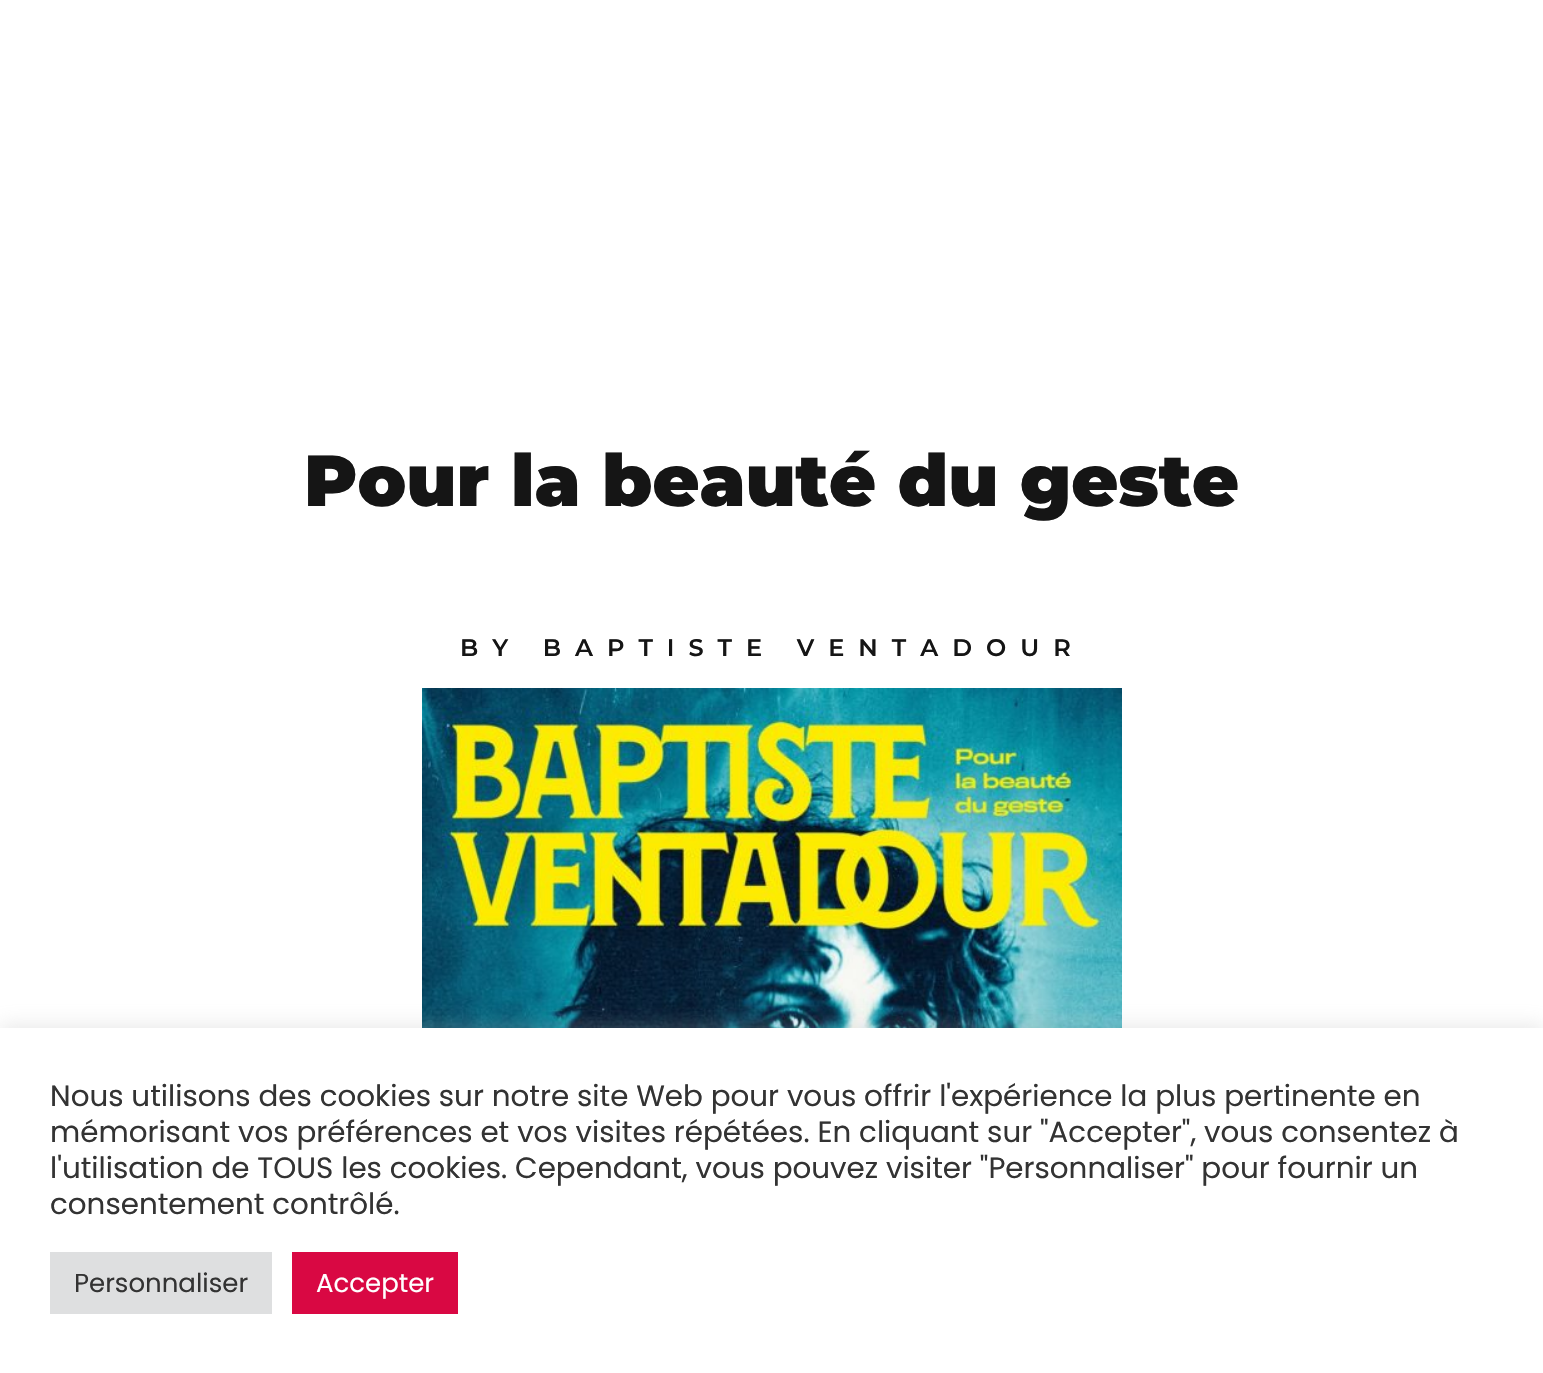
void draw(SkCanvas* canvas) {
    SkPaint paint;
    paint.setAntiAlias(true);
    auto spacedText = [&](const char* s, float x, float y, const SkFont& font, const SkPaint& ink, float letter, float word) {
        std::vector<SkGlyphID> glyphs(font.countText(s, strlen(s), SkTextEncoding::kUTF8));
        std::vector<float> xs(glyphs.size());
        font.textToGlyphs(s, strlen(s), SkTextEncoding::kUTF8, glyphs);
        font.getXPos(glyphs, xs, x);
        float extra = 0;
        for (size_t i = 0; i < glyphs.size(); i++) {
            xs[i] += extra;
            extra += letter + word * (glyphs[i] == font.unicharToGlyph(' '));
        }
        canvas->drawTextBlob(SkTextBlob::MakeFromPosHGlyphs(glyphs, xs, y, font), 0, 0, ink);
    };
    canvas->clear(0xFFFFFFFF);
    SkFont font1(fontMgr->matchFamilyStyle("Montserrat", SkFontStyle(900, SkFontStyle::kNormal_Width, SkFontStyle::kUpright_Slant)), 72);
    font1.setSubpixel(true);
    paint.setColor(0xFF151515);
    canvas->drawString("Pour la beauté du geste", 304, 506, font1, paint);
    SkFont font2(fontMgr->matchFamilyStyle("Montserrat", SkFontStyle(600, SkFontStyle::kNormal_Width, SkFontStyle::kUpright_Slant)), 24);
    font2.setSubpixel(true);
    spacedText("BY BAPTISTE VENTADOUR", 460, 656, font2, paint, 14, 0);
    canvas->drawImageRect(SkImages::DeferredFromEncodedData(SkData::MakeFromFileName("img1.png")), SkRect::MakeXYWH(422, 688, 700, 340), SkSamplingOptions());
    paint.setColor(0x4DACABAB);
    paint.setMaskFilter(SkMaskFilter::MakeBlur(kNormal_SkBlurStyle, 10));
    canvas->drawRect(SkRect::MakeXYWH(0, 1026, 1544, 346), paint);
    paint.setMaskFilter(nullptr);
    paint.setColor(0xFFFFFFFF);
    canvas->drawRect(SkRect::MakeXYWH(0, 1028, 1543, 345), paint);
    SkFont font3(fontMgr->matchFamilyStyle("Poppins", SkFontStyle::Normal()), 29.35f);
    font3.setSubpixel(true);
    paint.setColor(0xFF333333);
    canvas->drawString("Nous utilisons des cookies sur notre site Web pour vous offrir l'expérience la plus pertinente en", 50, 1106, font3, paint);
    canvas->drawString("mémorisant vos préférences et vos visites répétées. En cliquant sur \"Accepter\", vous consentez à", 50, 1142, font3, paint);
    canvas->drawString("l'utilisation de TOUS les cookies. Cependant, vous pouvez visiter \"Personnaliser\" pour fournir un", 50, 1178, font3, paint);
    canvas->drawString("consentement contrôlé.", 50, 1214, font3, paint);
    paint.setColor(0xFFDEDFE0);
    canvas->drawRect(SkRect::MakeXYWH(50, 1252, 222, 62), paint);
    SkFont font4(fontMgr->matchFamilyStyle("Poppins", SkFontStyle::Normal()), 26);
    font4.setSubpixel(true);
    paint.setColor(0xFF333333);
    canvas->drawString("Personnaliser", 74, 1292, font4, paint);
    paint.setColor(0xFFD90843);
    canvas->drawRect(SkRect::MakeXYWH(292, 1252, 166, 62), paint);
    paint.setColor(0xFFFFFFFF);
    canvas->drawString("Accepter", 316, 1292, font4, paint);
}
